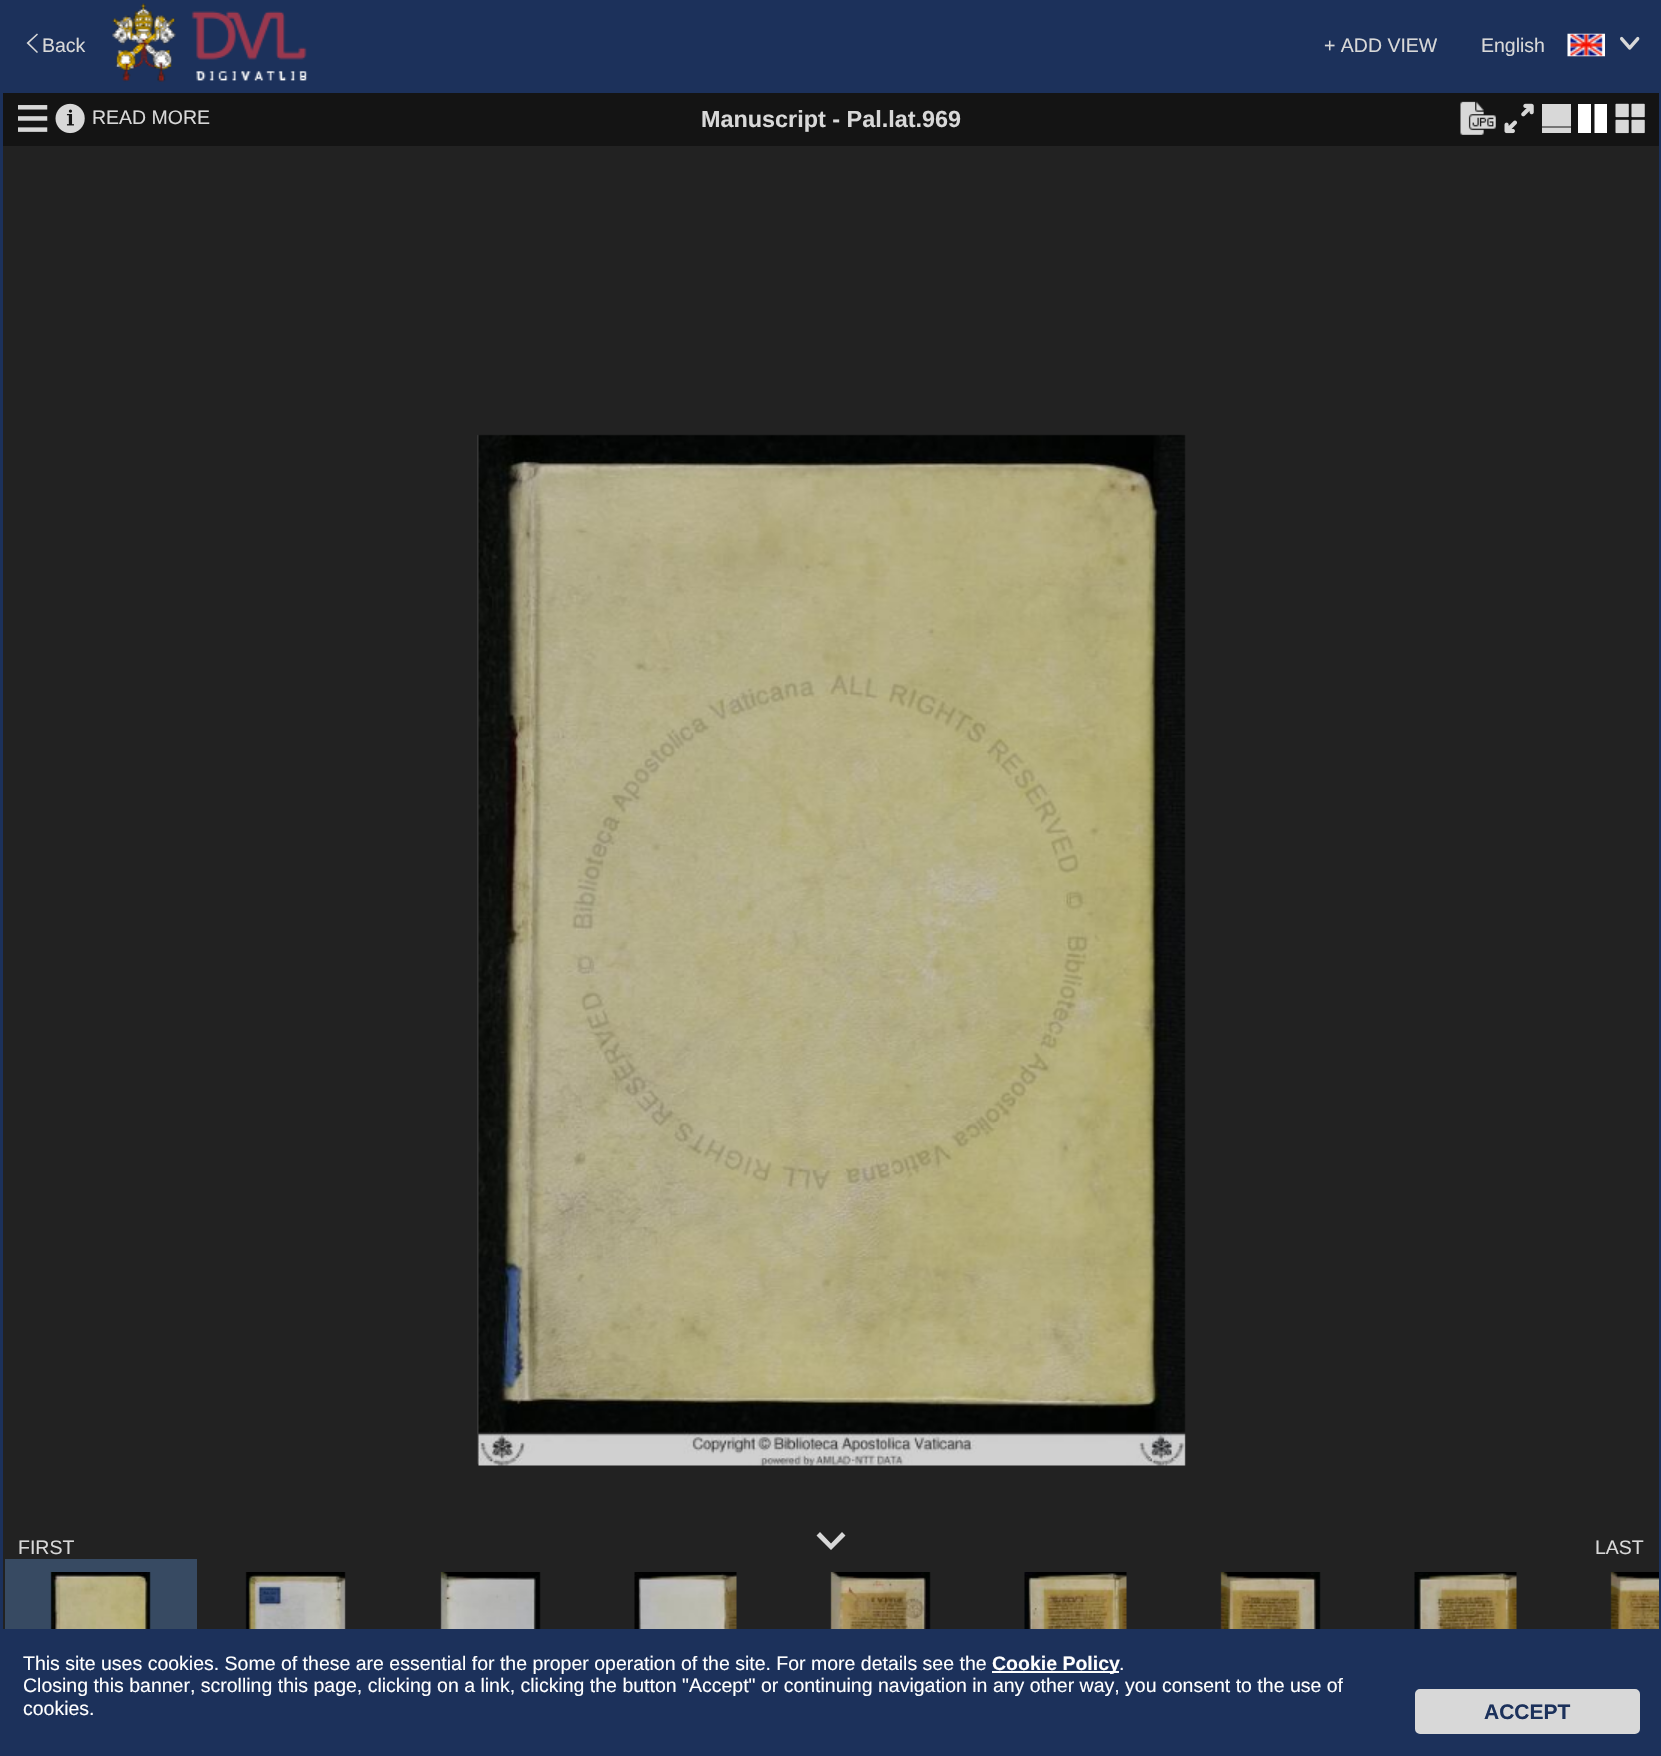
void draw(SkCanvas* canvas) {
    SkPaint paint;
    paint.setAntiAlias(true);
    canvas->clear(0xFF1C315B);
    SkFont font1(fontMgr->matchFamilyStyle("Liberation Sans", SkFontStyle::Normal()), 19.5f);
    font1.setSubpixel(true);
    paint.setColor(0xFFD8D8D8);
    canvas->drawString("Back", 42, 52, font1, paint);
    canvas->drawPath(SkPathBuilder().moveTo(29, 43).lineTo(38, 34.5f).lineTo(37, 33.5f).lineTo(26.5f, 43).lineTo(37, 53).lineTo(38, 52).close().detach(), paint);
    canvas->drawImageRect(SkImages::DeferredFromEncodedData(SkData::MakeFromFileName("img1.png")), SkRect::MakeXYWH(112, 3, 196, 79), SkSamplingOptions());
    canvas->drawString("+ ADD VIEW", 1324, 52, font1, paint);
    canvas->drawImageRect(SkImages::DeferredFromEncodedData(SkData::MakeFromFileName("img2.png")), SkRect::MakeXYWH(1567, 33, 38, 24), SkSamplingOptions());
    canvas->drawString("English", 1481, 52, font1, paint);
    canvas->drawImageRect(SkImages::DeferredFromEncodedData(SkData::MakeFromFileName("img3.png")), SkRect::MakeXYWH(1620, 36, 20, 14), SkSamplingOptions());
    paint.setColor(0xFF141414);
    canvas->drawRect(SkRect::MakeXYWH(3, 93, 1656, 53), paint);
    canvas->drawImageRect(SkImages::DeferredFromEncodedData(SkData::MakeFromFileName("img4.png")), SkRect::MakeXYWH(18, 105, 30, 27), SkSamplingOptions());
    canvas->drawImageRect(SkImages::DeferredFromEncodedData(SkData::MakeFromFileName("img5.png")), SkRect::MakeXYWH(55, 103, 30, 31), SkSamplingOptions());
    paint.setColor(0xFFD8D8D8);
    canvas->drawString("READ MORE", 92, 124, font1, paint);
    SkFont font2(fontMgr->matchFamilyStyle("Liberation Sans", SkFontStyle::Bold()), 23.4f);
    font2.setSubpixel(true);
    canvas->drawString("Manuscript - Pal.lat.969", 701, 127, font2, paint);
    canvas->drawImageRect(SkImages::DeferredFromEncodedData(SkData::MakeFromFileName("img6.png")), SkRect::MakeXYWH(1460, 101, 36, 34), SkSamplingOptions());
    canvas->drawImageRect(SkImages::DeferredFromEncodedData(SkData::MakeFromFileName("img7.png")), SkRect::MakeXYWH(1504, 103, 30, 31), SkSamplingOptions());
    canvas->drawPath(SkPathBuilder().moveTo(1542, 104).lineTo(1571, 104).lineTo(1571, 126.5f).lineTo(1542, 126.5f).close().moveTo(1542, 127.5f).lineTo(1571, 127.5f).lineTo(1571, 133).lineTo(1542, 133).close().detach(), paint);
    paint.setColor(0xFFFFFFFF);
    canvas->drawPath(SkPathBuilder().moveTo(1578, 104).lineTo(1591, 104).lineTo(1591, 133).lineTo(1578, 133).close().moveTo(1594.5f, 104).lineTo(1607, 104).lineTo(1607, 133).lineTo(1594.5f, 133).close().detach(), paint);
    canvas->drawImageRect(SkImages::DeferredFromEncodedData(SkData::MakeFromFileName("img8.png")), SkRect::MakeXYWH(1615, 103, 30, 31), SkSamplingOptions());
    paint.setColor(0xFF222222);
    canvas->drawRect(SkRect::MakeXYWH(3, 146, 1656, 1483), paint);
    canvas->drawImageRect(SkImages::DeferredFromEncodedData(SkData::MakeFromFileName("img9.png")), SkRect::MakeXYWH(477, 434, 709, 1032), SkSamplingOptions());
    paint.setColor(0xFFD8D8D8);
    canvas->drawString("FIRST", 18, 1554, font1, paint);
    canvas->drawPath(SkPathBuilder().moveTo(842, 1532).lineTo(831, 1543.5f).lineTo(820, 1532).lineTo(816.5f, 1535.5f).lineTo(831, 1550).lineTo(845.5f, 1535.5f).close().detach(), paint);
    canvas->drawString("LAST", 1595, 1554, font1, paint);
    paint.setColor(0xFF374A62);
    canvas->drawRect(SkRect::MakeXYWH(5, 1559, 192, 70), paint);
    canvas->drawImageRect(SkImages::DeferredFromEncodedData(SkData::MakeFromFileName("img10.png")), SkRect::MakeXYWH(50, 1572, 101, 57), SkSamplingOptions());
    canvas->drawImageRect(SkImages::DeferredFromEncodedData(SkData::MakeFromFileName("img11.png")), SkRect::MakeXYWH(245, 1572, 101, 57), SkSamplingOptions());
    canvas->drawImageRect(SkImages::DeferredFromEncodedData(SkData::MakeFromFileName("img12.png")), SkRect::MakeXYWH(440, 1572, 101, 57), SkSamplingOptions());
    canvas->drawImageRect(SkImages::DeferredFromEncodedData(SkData::MakeFromFileName("img13.png")), SkRect::MakeXYWH(634, 1572, 103, 57), SkSamplingOptions());
    canvas->drawImageRect(SkImages::DeferredFromEncodedData(SkData::MakeFromFileName("img14.png")), SkRect::MakeXYWH(830, 1572, 101, 57), SkSamplingOptions());
    canvas->drawImageRect(SkImages::DeferredFromEncodedData(SkData::MakeFromFileName("img15.png")), SkRect::MakeXYWH(1024, 1572, 103, 57), SkSamplingOptions());
    canvas->drawImageRect(SkImages::DeferredFromEncodedData(SkData::MakeFromFileName("img16.png")), SkRect::MakeXYWH(1220, 1572, 101, 57), SkSamplingOptions());
    canvas->drawImageRect(SkImages::DeferredFromEncodedData(SkData::MakeFromFileName("img17.png")), SkRect::MakeXYWH(1414, 1572, 103, 57), SkSamplingOptions());
    canvas->drawImageRect(SkImages::DeferredFromEncodedData(SkData::MakeFromFileName("img18.png")), SkRect::MakeXYWH(1610, 1572, 49, 57), SkSamplingOptions());
    paint.setColor(0xFFFFFFFF);
    canvas->drawString("This site uses cookies. Some of these are essential for the proper operation of the site. For more details see the", 23, 1670, font1, paint);
    canvas->drawRect(SkRect::MakeXYWH(992, 1671, 127, 2), paint);
    SkFont font3(fontMgr->matchFamilyStyle("Liberation Sans", SkFontStyle::Bold()), 19.5f);
    font3.setSubpixel(true);
    canvas->drawString("Cookie Policy", 992, 1670, font3, paint);
    canvas->drawString(".", 1119, 1670, font1, paint);
    canvas->drawString("Closing this banner, scrolling this page, clicking on a link, clicking the button \"Accept\" or continuing navigation in any other way, you consent to the use of", 23, 1692, font1, paint);
    canvas->drawString("cookies.", 23, 1715, font1, paint);
    paint.setColor(0xFFD8D8D8);
    canvas->drawRoundRect(SkRect::MakeXYWH(1416, 1690, 223, 43), 4, 4, paint);
    paint.setStyle(SkPaint::kStroke_Style);
    paint.setStrokeWidth(2);
    canvas->drawRoundRect(SkRect::MakeXYWH(1416, 1690, 223, 43), 4, 4, paint);
    SkFont font4(fontMgr->matchFamilyStyle("Liberation Sans", SkFontStyle::Bold()), 21);
    font4.setSubpixel(true);
    paint.setStyle(SkPaint::kFill_Style);
    paint.setColor(0xFF1C315B);
    canvas->drawString("ACCEPT", 1484, 1719, font4, paint);
}
